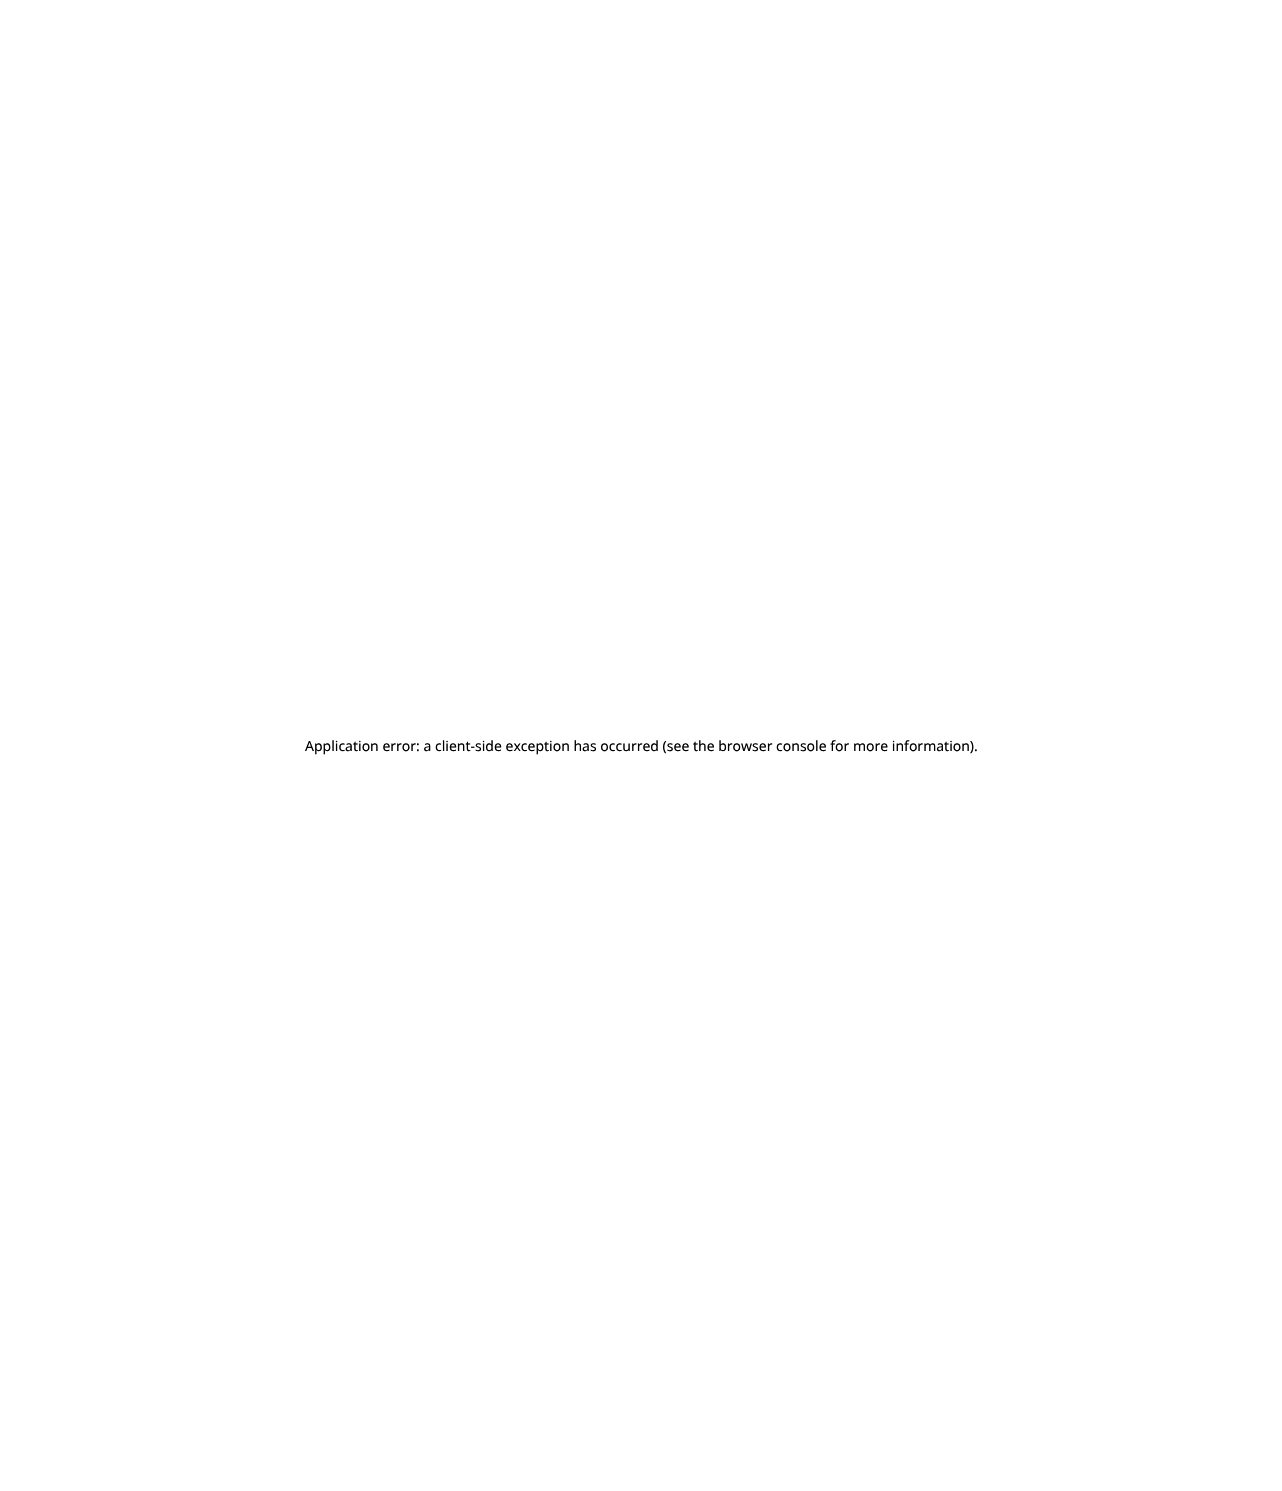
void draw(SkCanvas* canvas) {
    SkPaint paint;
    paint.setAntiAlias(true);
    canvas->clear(0xFFFFFFFF);
    SkFont font1(fontMgr->matchFamilyStyle("Noto Sans", SkFontStyle::Normal()), 14);
    font1.setSubpixel(true);
    paint.setColor(0xFF000000);
    canvas->drawString("Application error: a client-side exception has occurred (see the browser console for more information).", 305, 751, font1, paint);
}
